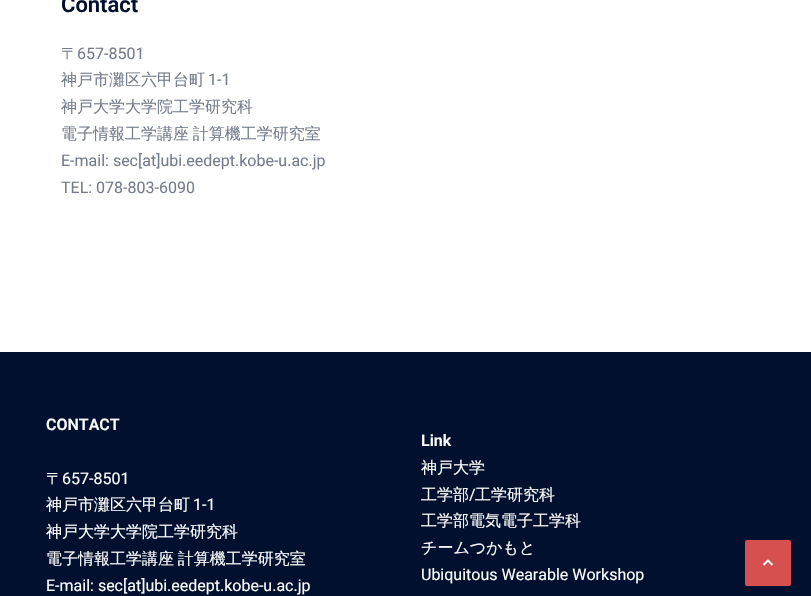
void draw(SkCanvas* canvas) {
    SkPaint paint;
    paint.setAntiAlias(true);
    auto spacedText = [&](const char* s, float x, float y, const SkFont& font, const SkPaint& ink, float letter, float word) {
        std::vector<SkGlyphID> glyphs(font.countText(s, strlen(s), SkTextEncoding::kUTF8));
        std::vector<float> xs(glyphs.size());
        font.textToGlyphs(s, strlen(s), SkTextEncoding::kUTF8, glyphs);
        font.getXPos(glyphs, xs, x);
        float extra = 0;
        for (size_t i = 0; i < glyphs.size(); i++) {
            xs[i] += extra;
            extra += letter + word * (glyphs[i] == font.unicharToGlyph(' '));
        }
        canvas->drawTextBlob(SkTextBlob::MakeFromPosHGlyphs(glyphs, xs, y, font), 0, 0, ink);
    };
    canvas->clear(0xFFFFFFFF);
    SkFont font1(fontMgr->matchFamilyStyle("Roboto", SkFontStyle(600, SkFontStyle::kNormal_Width, SkFontStyle::kUpright_Slant)), 22);
    font1.setSubpixel(true);
    paint.setColor(0xFF00102E);
    canvas->drawString("Contact", 61, 12, font1, paint);
    SkFont font2(fontMgr->matchFamilyStyle("WenQuanYi Zen Hei", SkFontStyle(500, SkFontStyle::kNormal_Width, SkFontStyle::kUpright_Slant)), 16);
    font2.setSubpixel(true);
    paint.setColor(0xFF737C8C);
    canvas->drawString("〒", 61, 59, font2, paint);
    SkFont font3(fontMgr->matchFamilyStyle("Roboto", SkFontStyle::Normal()), 16);
    font3.setSubpixel(true);
    canvas->drawString("657-8501", 77, 59, font3, paint);
    canvas->drawString("神戸市灘区六甲台町", 61, 85, font2, paint);
    canvas->drawString("1-1", 208, 85, font3, paint);
    canvas->drawString("神戸大学大学院工学研究科", 61, 112, font2, paint);
    spacedText("電子情報工学講座 計算機工学研究室", 61, 139, font2, paint, 0, -1);
    canvas->drawString("E-mail: sec[at]ubi.eedept.kobe-u.ac.jp", 61, 166, font3, paint);
    canvas->drawString("TEL: 078-803-6090", 61, 193, font3, paint);
    paint.setColor(0xFF00102E);
    canvas->drawRect(SkRect::MakeXYWH(0, 352, 811, 244), paint);
    SkFont font4(fontMgr->matchFamilyStyle("Roboto", SkFontStyle(600, SkFontStyle::kNormal_Width, SkFontStyle::kUpright_Slant)), 16);
    font4.setSubpixel(true);
    paint.setColor(0xFFFFFFFF);
    canvas->drawString("CONTACT", 46, 430, font4, paint);
    canvas->drawString("〒", 46, 484, font2, paint);
    canvas->drawString("657-8501", 62, 484, font3, paint);
    canvas->drawString("神戸市灘区六甲台町", 46, 510, font2, paint);
    canvas->drawString("1-1", 193, 510, font3, paint);
    canvas->drawString("神戸大学大学院工学研究科", 46, 537, font2, paint);
    spacedText("電子情報工学講座 計算機工学研究室", 46, 564, font2, paint, 0, -1);
    canvas->drawString("E-mail: sec[at]ubi.eedept.kobe-u.ac.jp", 46, 591, font3, paint);
    canvas->drawString("Link", 421, 446, font4, paint);
    canvas->drawString("神戸大学", 421, 473, font2, paint);
    canvas->drawString("工学部", 421, 500, font2, paint);
    canvas->drawString("/", 469, 500, font3, paint);
    canvas->drawString("工学研究科", 475, 500, font2, paint);
    canvas->drawString("工学部電気電子工学科", 421, 526, font2, paint);
    canvas->drawString("チームつかもと", 421, 553, font2, paint);
    canvas->drawString("Ubiquitous Wearable Workshop", 421, 580, font3, paint);
    paint.setColor(0xFFD65050);
    canvas->drawRoundRect(SkRect::MakeXYWH(745, 540, 46, 46), 2, 2, paint);
    paint.setStyle(SkPaint::kStroke_Style);
    paint.setStrokeWidth(2);
    paint.setStrokeJoin(SkPaint::kRound_Join);
    paint.setColor(0xFFFFFFFF);
    canvas->drawPath(SkPathBuilder().moveTo(763.5f, 565).lineTo(768, 560.5f).lineTo(772.5f, 565).detach(), paint);
}
